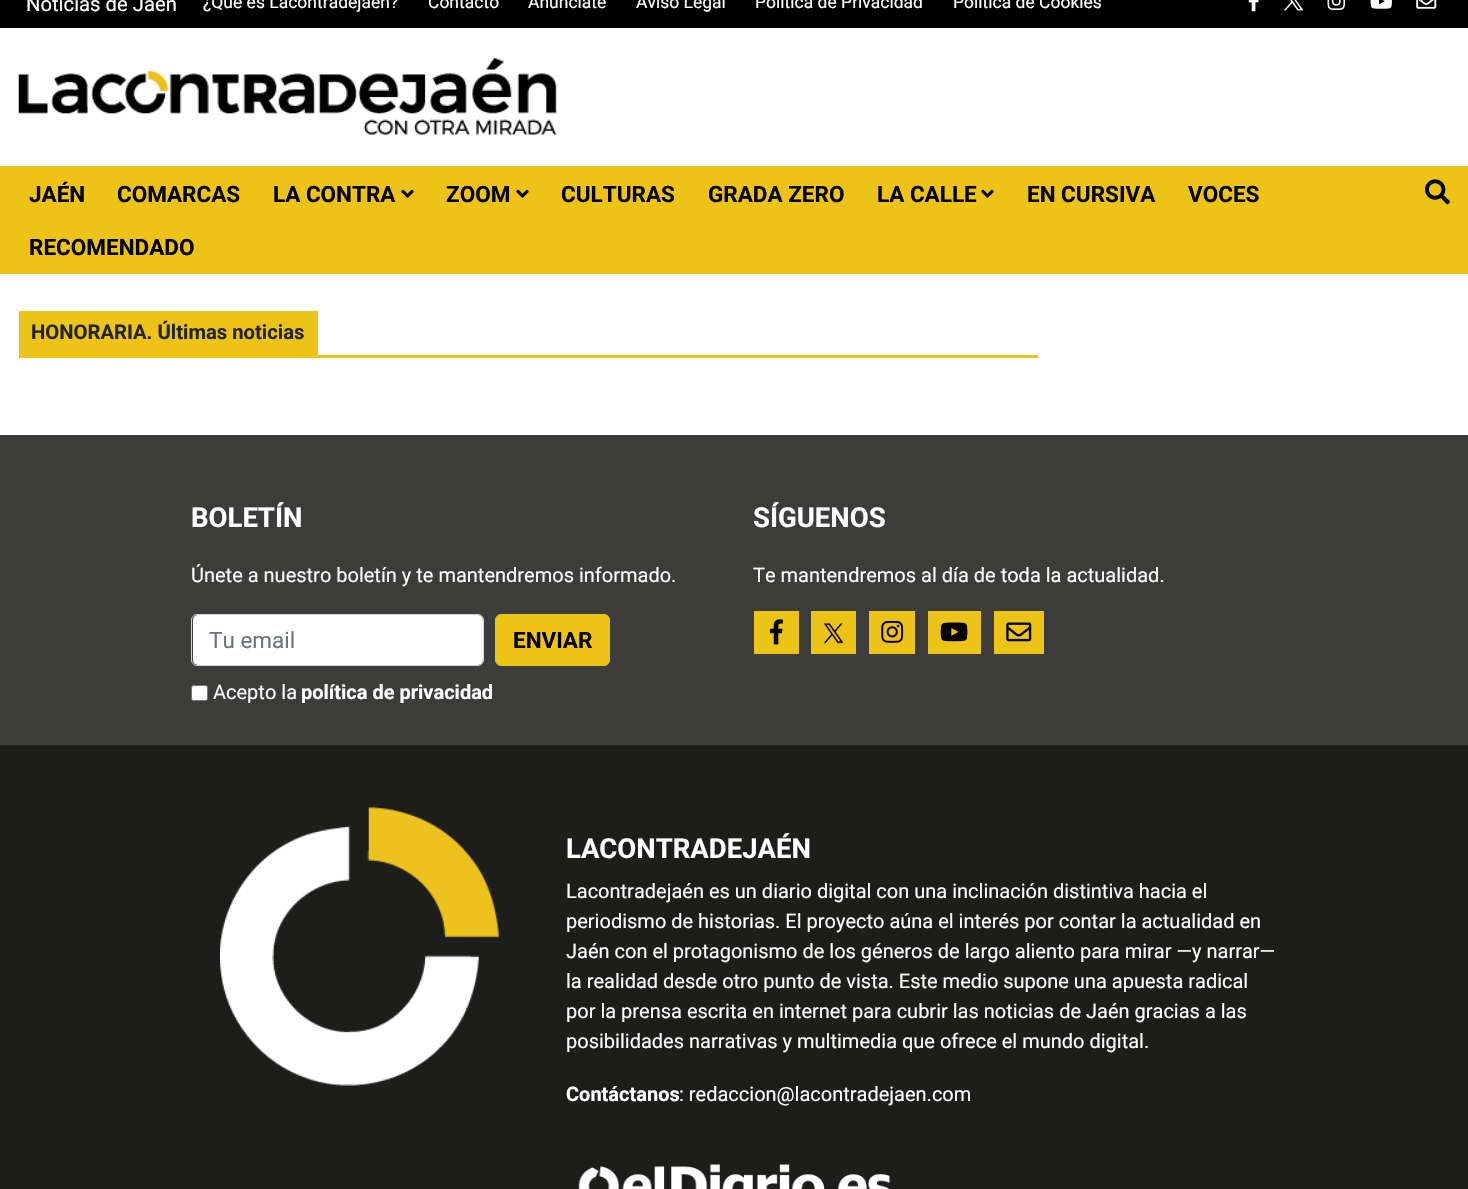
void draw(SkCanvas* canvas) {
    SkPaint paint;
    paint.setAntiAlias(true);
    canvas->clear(0xFFFFFFFF);
    paint.setColor(0xFF000000);
    canvas->drawRect(SkRect::MakeXYWH(0, 0, 1468, 28), paint);
    SkFont font1(fontMgr->matchFamilyStyle("Roboto", SkFontStyle::Normal()), 20.25f);
    font1.setSubpixel(true);
    paint.setColor(0xFFFFFFFF);
    canvas->drawString("Noticias de Jaén", 26, 11, font1, paint);
    SkFont font2(fontMgr->matchFamilyStyle("Roboto", SkFontStyle::Normal()), 17.5f);
    font2.setSubpixel(true);
    canvas->drawString("¿Qué es Lacontradejaén?", 203, 8, font2, paint);
    canvas->drawString("Contacto", 428, 8, font2, paint);
    canvas->drawString("Anúnciate", 528, 8, font2, paint);
    canvas->drawString("Aviso Legal", 636, 8, font2, paint);
    canvas->drawString("Política de Privacidad", 755, 8, font2, paint);
    canvas->drawString("Política de Cookies", 953, 8, font2, paint);
    canvas->drawImageRect(SkImages::DeferredFromEncodedData(SkData::MakeFromFileName("img1.png")), SkRect::MakeXYWH(1248, 0, 11, 12), SkSamplingOptions());
    canvas->drawImageRect(SkImages::DeferredFromEncodedData(SkData::MakeFromFileName("img2.png")), SkRect::MakeXYWH(1283, 0, 21, 11), SkSamplingOptions());
    canvas->drawImageRect(SkImages::DeferredFromEncodedData(SkData::MakeFromFileName("img3.png")), SkRect::MakeXYWH(1327, 0, 18, 10), SkSamplingOptions());
    canvas->drawImageRect(SkImages::DeferredFromEncodedData(SkData::MakeFromFileName("img4.png")), SkRect::MakeXYWH(1370, 0, 22, 9), SkSamplingOptions());
    canvas->drawImageRect(SkImages::DeferredFromEncodedData(SkData::MakeFromFileName("img5.png")), SkRect::MakeXYWH(1416, 0, 21, 9), SkSamplingOptions());
    canvas->drawImageRect(SkImages::DeferredFromEncodedData(SkData::MakeFromFileName("img6.png")), SkRect::MakeXYWH(18, 57, 539, 79), SkSamplingOptions());
    paint.setColor(0xFFEEC318);
    canvas->drawRect(SkRect::MakeXYWH(0, 166, 1468, 108), paint);
    SkFont font3(fontMgr->matchFamilyStyle("Roboto", SkFontStyle::Bold()), 22.5f);
    font3.setSubpixel(true);
    paint.setColor(0xFF000000);
    canvas->drawString("JAÉN", 29, 202, font3, paint);
    canvas->drawString("COMARCAS", 117, 202, font3, paint);
    canvas->drawString("LA CONTRA", 273, 202, font3, paint);
    canvas->drawImageRect(SkImages::DeferredFromEncodedData(SkData::MakeFromFileName("img7.png")), SkRect::MakeXYWH(401, 189, 13, 9), SkSamplingOptions());
    canvas->drawString("ZOOM", 446, 202, font3, paint);
    canvas->drawImageRect(SkImages::DeferredFromEncodedData(SkData::MakeFromFileName("img7.png")), SkRect::MakeXYWH(516, 189, 13, 9), SkSamplingOptions());
    canvas->drawString("CULTURAS", 561, 202, font3, paint);
    canvas->drawString("GRADA ZERO", 708, 202, font3, paint);
    canvas->drawString("LA CALLE", 877, 202, font3, paint);
    canvas->drawImageRect(SkImages::DeferredFromEncodedData(SkData::MakeFromFileName("img7.png")), SkRect::MakeXYWH(981, 189, 13, 9), SkSamplingOptions());
    canvas->drawString("EN CURSIVA", 1027, 202, font3, paint);
    canvas->drawString("VOCES", 1188, 202, font3, paint);
    canvas->drawString("RECOMENDADO", 29, 255, font3, paint);
    canvas->drawImageRect(SkImages::DeferredFromEncodedData(SkData::MakeFromFileName("img8.png")), SkRect::MakeXYWH(1425, 179, 25, 26), SkSamplingOptions());
    paint.setColor(0xFFEEC318);
    canvas->drawRect(SkRect::MakeXYWH(19, 355, 1019, 3), paint);
    canvas->drawRect(SkRect::MakeXYWH(19, 311, 299, 44), paint);
    SkFont font4(fontMgr->matchFamilyStyle("Roboto", SkFontStyle::Bold()), 20.25f);
    font4.setSubpixel(true);
    paint.setColor(0xFF212529);
    canvas->drawString("HONORARIA. Últimas noticias", 31, 339, font4, paint);
    paint.setColor(0xFF3C3C3B);
    canvas->drawRect(SkRect::MakeXYWH(0, 435, 1468, 310), paint);
    SkFont font5(fontMgr->matchFamilyStyle("Roboto", SkFontStyle::Bold()), 27.5f);
    font5.setSubpixel(true);
    paint.setColor(0xFFFFFFFF);
    canvas->drawString("BOLETÍN", 191, 527, font5, paint);
    SkFont font6(fontMgr->matchFamilyStyle("Roboto", SkFontStyle::Normal()), 20);
    font6.setSubpixel(true);
    canvas->drawString("Únete a nuestro boletín y te mantendremos informado.", 191, 582, font6, paint);
    canvas->drawRoundRect(SkRect::MakeXYWH(193, 615, 290, 50), 5, 5, paint);
    paint.setStyle(SkPaint::kStroke_Style);
    paint.setStrokeWidth(1);
    paint.setColor(0xFFCED4DA);
    canvas->drawRoundRect(SkRect::MakeXYWH(191.5f, 614.5f, 292, 51), 5.5f, 5.5f, paint);
    SkFont font7(fontMgr->matchFamilyStyle("Roboto", SkFontStyle::Normal()), 22.5f);
    font7.setSubpixel(true);
    paint.setStyle(SkPaint::kFill_Style);
    paint.setColor(0xFF6C757D);
    canvas->drawString("Tu email", 209, 648, font7, paint);
    paint.setColor(0xFFEEC318);
    canvas->drawRoundRect(SkRect::MakeXYWH(495.5f, 614.5f, 114, 51), 5.5f, 5.5f, paint);
    paint.setStyle(SkPaint::kStroke_Style);
    canvas->drawRoundRect(SkRect::MakeXYWH(495.5f, 614.5f, 114, 51), 5.5f, 5.5f, paint);
    paint.setStyle(SkPaint::kFill_Style);
    paint.setColor(0xFF000000);
    canvas->drawString("ENVIAR", 513, 648, font3, paint);
    paint.setColor(0xFFFFFFFF);
    canvas->drawRoundRect(SkRect::MakeXYWH(191.5f, 685.5f, 16, 15), 2, 2, paint);
    paint.setStyle(SkPaint::kStroke_Style);
    paint.setColor(0xFF767676);
    canvas->drawRoundRect(SkRect::MakeXYWH(191.5f, 685.5f, 16, 15), 2, 2, paint);
    paint.setStyle(SkPaint::kFill_Style);
    paint.setColor(0xFFFFFFFF);
    canvas->drawString("Acepto la", 213, 699, font6, paint);
    SkFont font8(fontMgr->matchFamilyStyle("Roboto", SkFontStyle::Bold()), 20);
    font8.setSubpixel(true);
    canvas->drawString("política de privacidad", 301, 699, font8, paint);
    canvas->drawString("SÍGUENOS", 753, 527, font5, paint);
    canvas->drawString("Te mantendremos al día de toda la actualidad.", 753, 582, font6, paint);
    paint.setColor(0xFFEEC318);
    canvas->drawRect(SkRect::MakeXYWH(754, 611, 45, 43), paint);
    canvas->drawImageRect(SkImages::DeferredFromEncodedData(SkData::MakeFromFileName("img9.png")), SkRect::MakeXYWH(770, 619, 13, 26), SkSamplingOptions());
    canvas->drawRect(SkRect::MakeXYWH(811, 611, 45, 43), paint);
    canvas->drawImageRect(SkImages::DeferredFromEncodedData(SkData::MakeFromFileName("img10.png")), SkRect::MakeXYWH(823, 623, 21, 21), SkSamplingOptions());
    canvas->drawRect(SkRect::MakeXYWH(869, 611, 46, 43), paint);
    canvas->drawImageRect(SkImages::DeferredFromEncodedData(SkData::MakeFromFileName("img11.png")), SkRect::MakeXYWH(881, 620, 23, 23), SkSamplingOptions());
    canvas->drawRect(SkRect::MakeXYWH(928, 611, 53, 43), paint);
    canvas->drawImageRect(SkImages::DeferredFromEncodedData(SkData::MakeFromFileName("img12.png")), SkRect::MakeXYWH(940, 622, 28, 20), SkSamplingOptions());
    canvas->drawRect(SkRect::MakeXYWH(994, 611, 50, 43), paint);
    canvas->drawImageRect(SkImages::DeferredFromEncodedData(SkData::MakeFromFileName("img13.png")), SkRect::MakeXYWH(1006, 622, 26, 20), SkSamplingOptions());
    paint.setColor(0xFF1D1D1B);
    canvas->drawRect(SkRect::MakeXYWH(0, 745, 1468, 444), paint);
    canvas->drawImageRect(SkImages::DeferredFromEncodedData(SkData::MakeFromFileName("img14.png")), SkRect::MakeXYWH(220, 807, 279, 279), SkSamplingOptions());
    paint.setColor(0xFFFFFFFF);
    canvas->drawString("LACONTRADEJAÉN", 566, 858, font5, paint);
    canvas->drawString("Lacontradejaén es un diario digital con una inclinación distintiva hacia el", 566, 898, font6, paint);
    canvas->drawString("periodismo de historias. El proyecto aúna el interés por contar la actualidad en", 566, 928, font6, paint);
    canvas->drawString("Jaén con el protagonismo de los géneros de largo aliento para mirar —y narrar—", 566, 958, font6, paint);
    canvas->drawString("la realidad desde otro punto de vista. Este medio supone una apuesta radical", 566, 988, font6, paint);
    canvas->drawString("por la prensa escrita en internet para cubrir las noticias de Jaén gracias a las", 566, 1018, font6, paint);
    canvas->drawString("posibilidades narrativas y multimedia que ofrece el mundo digital.", 566, 1048, font6, paint);
    canvas->drawString("Contáctanos", 566, 1101, font8, paint);
    canvas->drawString(": redaccion@lacontradejaen.com", 679, 1101, font6, paint);
    canvas->drawImageRect(SkImages::DeferredFromEncodedData(SkData::MakeFromFileName("img15.png")), SkRect::MakeXYWH(578, 1164, 312, 25), SkSamplingOptions());
}
